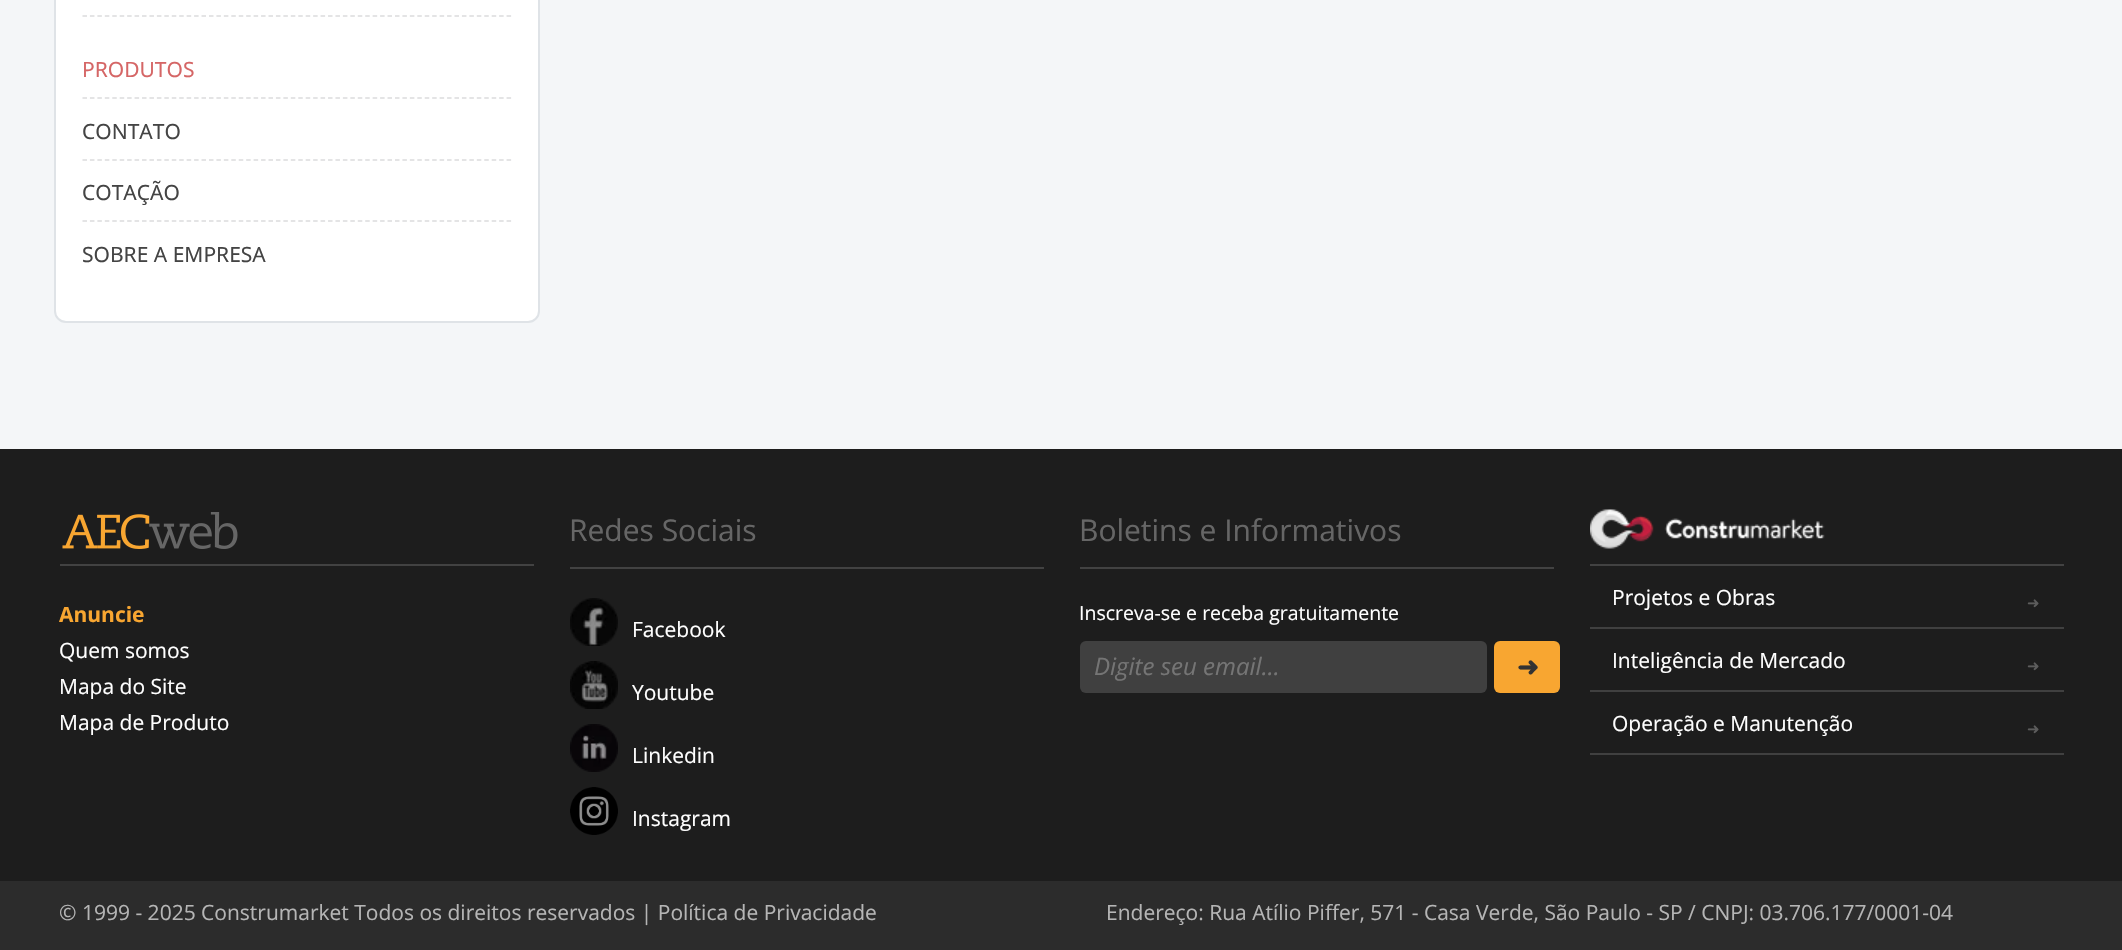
void draw(SkCanvas* canvas) {
    SkPaint paint;
    paint.setAntiAlias(true);
    canvas->clear(0xFFF4F6F8);
    paint.setColor(0xFFFFFFFF);
    canvas->drawRoundRect(SkRect::MakeXYWH(55, -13, 484, 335), 11, 11, paint);
    paint.setStyle(SkPaint::kStroke_Style);
    paint.setStrokeWidth(2);
    paint.setColor(0xFFDFE3E7);
    canvas->drawRoundRect(SkRect::MakeXYWH(55, -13, 484, 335), 11, 11, paint);
    paint.setStrokeWidth(1.5f);
    paint.setColor(0xFFDBDCDD);
    paint.setPathEffect(SkDashPathEffect::Make({{4.5f, 2.94f}}, 0));
    canvas->drawPath(SkPathBuilder().moveTo(82.5f, 16).lineTo(511.5f, 16).detach(), paint);
    paint.setPathEffect(nullptr);
    paint.setPathEffect(SkDashPathEffect::Make({{4.5f, 2.94f}}, 0));
    canvas->drawPath(SkPathBuilder().moveTo(82.5f, 98).lineTo(511.5f, 98).detach(), paint);
    paint.setPathEffect(nullptr);
    SkFont font1(fontMgr->matchFamilyStyle("Noto Sans", SkFontStyle::Normal()), 21);
    font1.setSubpixel(true);
    paint.setStyle(SkPaint::kFill_Style);
    paint.setColor(0xFFD56666);
    canvas->drawString("PRODUTOS", 82, 77, font1, paint);
    paint.setStyle(SkPaint::kStroke_Style);
    paint.setColor(0xFFDBDCDD);
    paint.setPathEffect(SkDashPathEffect::Make({{4.5f, 2.94f}}, 0));
    canvas->drawPath(SkPathBuilder().moveTo(82.5f, 160).lineTo(511.5f, 160).detach(), paint);
    paint.setPathEffect(nullptr);
    paint.setStyle(SkPaint::kFill_Style);
    paint.setColor(0xFF444444);
    canvas->drawString("CONTATO", 82, 139, font1, paint);
    paint.setStyle(SkPaint::kStroke_Style);
    paint.setColor(0xFFDBDCDD);
    paint.setPathEffect(SkDashPathEffect::Make({{4.5f, 2.94f}}, 0));
    canvas->drawPath(SkPathBuilder().moveTo(82.5f, 221).lineTo(511.5f, 221).detach(), paint);
    paint.setPathEffect(nullptr);
    paint.setStyle(SkPaint::kFill_Style);
    paint.setColor(0xFF444444);
    canvas->drawString("COTAÇÃO", 82, 200, font1, paint);
    canvas->drawString("SOBRE A EMPRESA", 82, 262, font1, paint);
    paint.setColor(0xFF1D1D1D);
    canvas->drawRect(SkRect::MakeXYWH(0, 449, 2122, 432), paint);
    paint.setColor(0xFF424242);
    canvas->drawRect(SkRect::MakeXYWH(60, 564, 474, 2), paint);
    canvas->drawImageRect(SkImages::DeferredFromEncodedData(SkData::MakeFromFileName("img1.png")), SkRect::MakeXYWH(62, 512, 176, 37), SkSamplingOptions());
    SkFont font2(fontMgr->matchFamilyStyle("Open Sans", SkFontStyle::Bold()), 21);
    font2.setSubpixel(true);
    paint.setColor(0xFFF8A631);
    canvas->drawString("Anuncie", 59, 622, font2, paint);
    SkFont font3(fontMgr->matchFamilyStyle("Open Sans", SkFontStyle::Normal()), 21);
    font3.setSubpixel(true);
    paint.setColor(0xFFFFFFFF);
    canvas->drawString("Quem somos", 59, 658, font3, paint);
    canvas->drawString("Mapa do Site", 59, 694, font3, paint);
    canvas->drawString("Mapa de Produto", 59, 730, font3, paint);
    paint.setColor(0xFF424242);
    canvas->drawRect(SkRect::MakeXYWH(570, 567, 474, 2), paint);
    SkFont font4(fontMgr->matchFamilyStyle("Open Sans", SkFontStyle::Normal()), 30);
    font4.setSubpixel(true);
    paint.setColor(0xFF666666);
    canvas->drawString("Redes Sociais", 569, 541, font4, paint);
    canvas->drawImageRect(SkImages::DeferredFromEncodedData(SkData::MakeFromFileName("img2.png")), SkRect::MakeXYWH(570, 598, 48, 48), SkSamplingOptions());
    paint.setColor(0xFFFFFFFF);
    canvas->drawString("Facebook", 632, 637, font3, paint);
    canvas->drawImageRect(SkImages::DeferredFromEncodedData(SkData::MakeFromFileName("img3.png")), SkRect::MakeXYWH(570, 661, 48, 48), SkSamplingOptions());
    canvas->drawString("Youtube", 632, 700, font3, paint);
    canvas->drawImageRect(SkImages::DeferredFromEncodedData(SkData::MakeFromFileName("img4.png")), SkRect::MakeXYWH(570, 724, 48, 48), SkSamplingOptions());
    canvas->drawString("Linkedin", 632, 763, font3, paint);
    canvas->drawImageRect(SkImages::DeferredFromEncodedData(SkData::MakeFromFileName("img5.png")), SkRect::MakeXYWH(570, 787, 48, 48), SkSamplingOptions());
    canvas->drawString("Instagram", 632, 826, font3, paint);
    paint.setColor(0xFF424242);
    canvas->drawRect(SkRect::MakeXYWH(1080, 567, 474, 2), paint);
    paint.setColor(0xFF666666);
    canvas->drawString("Boletins e Informativos", 1079, 541, font4, paint);
    SkFont font5(fontMgr->matchFamilyStyle("Open Sans", SkFontStyle::Normal()), 19.5f);
    font5.setSubpixel(true);
    paint.setColor(0xFFFFFFFF);
    canvas->drawString("Inscreva-se e receba gratuitamente", 1079, 620, font5, paint);
    paint.setColor(0xFF404040);
    canvas->drawRoundRect(SkRect::MakeXYWH(1080, 641, 407, 52), 6, 6, paint);
    SkFont font6(fontMgr->matchFamilyStyle("Open Sans", SkFontStyle::Italic()), 24);
    font6.setSubpixel(true);
    paint.setColor(0xFF757575);
    canvas->drawString("Digite seu email...", 1094, 675, font6, paint);
    paint.setColor(0xFFF8A631);
    canvas->drawRoundRect(SkRect::MakeXYWH(1494, 641, 66, 52), 6, 6, paint);
    SkFont font7(fontMgr->matchFamilyStyle("DejaVu Sans", SkFontStyle::Bold()), 26);
    font7.setSubpixel(true);
    paint.setColor(0xFF333333);
    canvas->drawString("➜", 1517, 676, font7, paint);
    paint.setColor(0xFF424242);
    canvas->drawRect(SkRect::MakeXYWH(1590, 564, 474, 2), paint);
    canvas->drawImageRect(SkImages::DeferredFromEncodedData(SkData::MakeFromFileName("img6.png")), SkRect::MakeXYWH(1590, 509, 235, 40), SkSamplingOptions());
    paint.setColor(0xFF404040);
    canvas->drawRect(SkRect::MakeXYWH(1590, 627, 474, 2), paint);
    paint.setColor(0xFFFFFFFF);
    canvas->drawString("Projetos e Obras", 1612, 605, font3, paint);
    SkFont font8(fontMgr->matchFamilyStyle("DejaVu Sans", SkFontStyle::Normal()), 15);
    font8.setSubpixel(true);
    paint.setColor(0xFF5C5C5C);
    canvas->drawString("➜", 2027, 608, font8, paint);
    paint.setColor(0xFF404040);
    canvas->drawRect(SkRect::MakeXYWH(1590, 690, 474, 2), paint);
    paint.setColor(0xFFFFFFFF);
    canvas->drawString("Inteligência de Mercado", 1612, 668, font3, paint);
    paint.setColor(0xFF5C5C5C);
    canvas->drawString("➜", 2027, 671, font8, paint);
    paint.setColor(0xFF404040);
    canvas->drawRect(SkRect::MakeXYWH(1590, 753, 474, 2), paint);
    paint.setColor(0xFFFFFFFF);
    canvas->drawString("Operação e Manutenção", 1612, 731, font3, paint);
    paint.setColor(0xFF5C5C5C);
    canvas->drawString("➜", 2027, 734, font8, paint);
    paint.setColor(0xFF2C2C2C);
    canvas->drawRect(SkRect::MakeXYWH(0, 881, 2122, 69), paint);
    paint.setColor(0xFFB5B5B5);
    canvas->drawString("© 1999 - 2025 Construmarket Todos os direitos reservados | Política de Privacidade", 59, 920, font3, paint);
    canvas->drawString("Endereço: Rua Atílio Piffer, 571 - Casa Verde, São Paulo - SP / CNPJ: 03.706.177/0001-04", 1106, 920, font3, paint);
}
